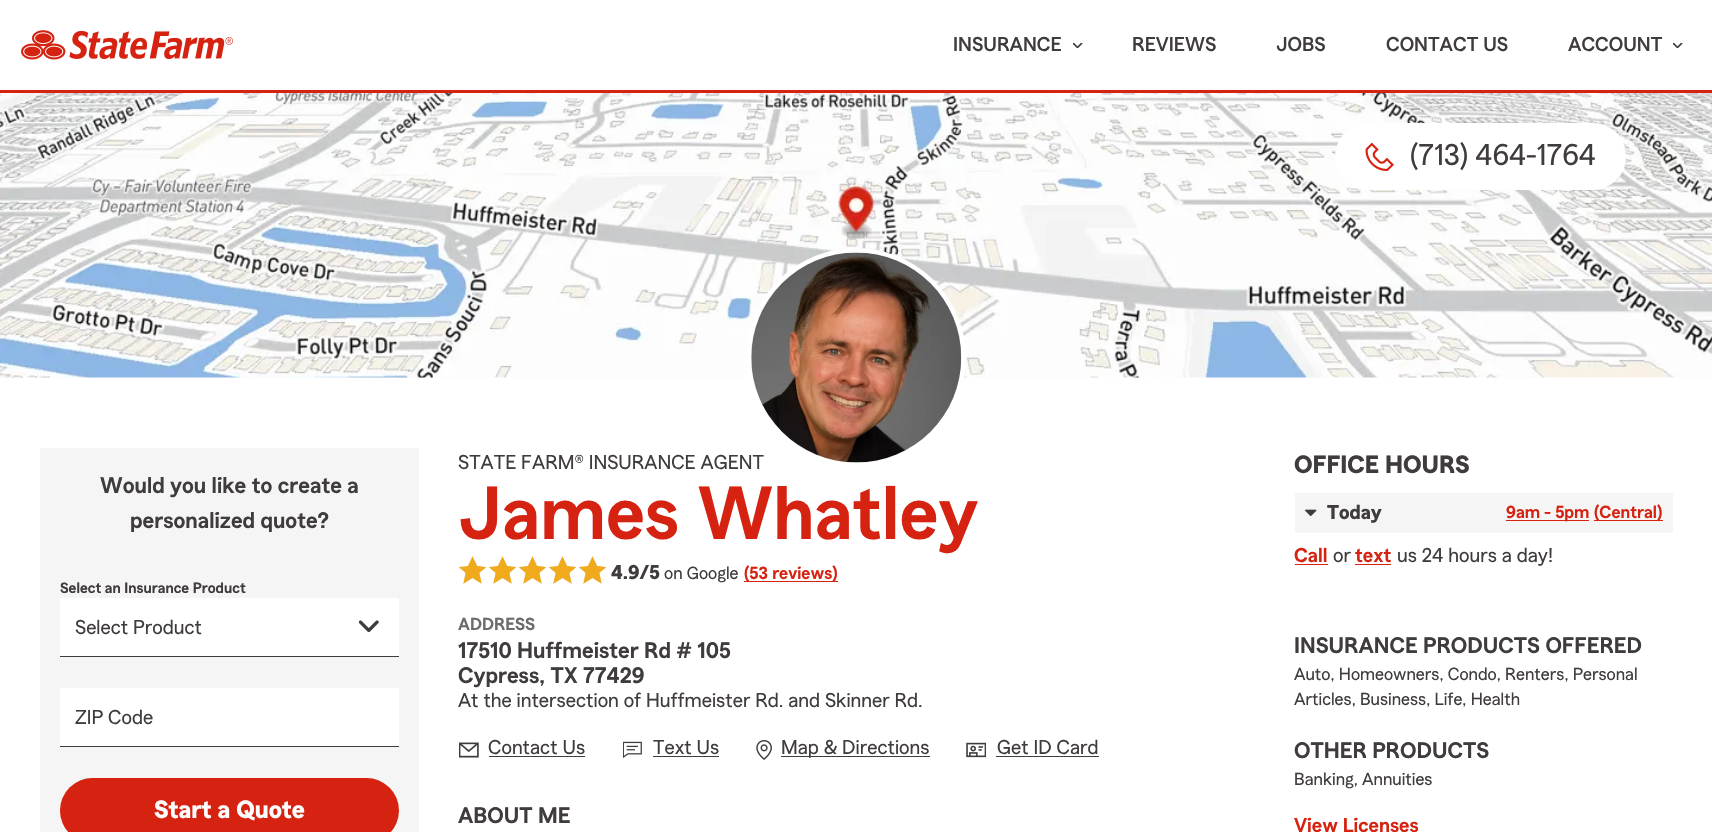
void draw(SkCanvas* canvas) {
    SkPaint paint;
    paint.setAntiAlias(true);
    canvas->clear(0xFFFFFFFF);
    paint.setColor(0xFFD62311);
    canvas->drawRect(SkRect::MakeXYWH(0, 90, 1712, 3), paint);
    canvas->drawImageRect(SkImages::DeferredFromEncodedData(SkData::MakeFromFileName("img1.png")), SkRect::MakeXYWH(21, 30, 212, 30), SkSamplingOptions());
    SkFont font1(fontMgr->matchFamilyStyle("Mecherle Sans", SkFontStyle(500, SkFontStyle::kNormal_Width, SkFontStyle::kUpright_Slant)), 20);
    font1.setSubpixel(true);
    paint.setColor(0xFF403C3C);
    canvas->drawString("INSURANCE", 953, 51, font1, paint);
    canvas->drawImageRect(SkImages::DeferredFromEncodedData(SkData::MakeFromFileName("img2.png")), SkRect::MakeXYWH(1073, 43, 10, 5), SkSamplingOptions());
    canvas->drawString("REVIEWS", 1132, 51, font1, paint);
    canvas->drawString("JOBS", 1276, 51, font1, paint);
    canvas->drawString("CONTACT US", 1386, 51, font1, paint);
    canvas->drawString("ACCOUNT", 1568, 51, font1, paint);
    canvas->drawImageRect(SkImages::DeferredFromEncodedData(SkData::MakeFromFileName("img2.png")), SkRect::MakeXYWH(1673, 43, 10, 5), SkSamplingOptions());
    canvas->drawImageRect(SkImages::DeferredFromEncodedData(SkData::MakeFromFileName("img3.png")), SkRect::MakeXYWH(0, 93, 1712, 285), SkSamplingOptions());
    paint.setColor(0xFFFFFFFF);
    canvas->drawRoundRect(SkRect::MakeXYWH(1335, 123, 291, 67), 33.5f, 33.5f, paint);
    canvas->drawImageRect(SkImages::DeferredFromEncodedData(SkData::MakeFromFileName("img4.png")), SkRect::MakeXYWH(1365, 142, 29, 29), SkSamplingOptions());
    SkFont font2(fontMgr->matchFamilyStyle("Mecherle Sans", SkFontStyle::Normal()), 30);
    font2.setSubpixel(true);
    paint.setColor(0xFF403C3C);
    canvas->drawString("(713) 464-1764", 1410, 165, font2, paint);
    paint.setColor(0xFFF5F5F5);
    canvas->drawRect(SkRect::MakeXYWH(40, 448, 379, 384), paint);
    SkFont font3(fontMgr->matchFamilyStyle("Mecherle Sans", SkFontStyle(600, SkFontStyle::kNormal_Width, SkFontStyle::kUpright_Slant)), 22.5f);
    font3.setSubpixel(true);
    paint.setColor(0xFF403C3C);
    canvas->drawString("Would you like to create a", 100, 493, font3, paint);
    canvas->drawString("personalized quote?", 130, 528, font3, paint);
    canvas->drawRect(SkRect::MakeXYWH(60, 656, 339, 1), paint);
    SkFont font4(fontMgr->matchFamilyStyle("Mecherle Sans", SkFontStyle(600, SkFontStyle::kNormal_Width, SkFontStyle::kUpright_Slant)), 15);
    font4.setSubpixel(true);
    canvas->drawString("Select an Insurance Product", 60, 593, font4, paint);
    paint.setColor(0xFFFFFFFF);
    canvas->drawRect(SkRect::MakeXYWH(60, 598, 339, 58), paint);
    SkFont font5(fontMgr->matchFamilyStyle("Mecherle Sans", SkFontStyle::Normal()), 20);
    font5.setSubpixel(true);
    paint.setColor(0xFF403C3C);
    canvas->drawString("Select Product", 75, 634, font5, paint);
    canvas->drawImageRect(SkImages::DeferredFromEncodedData(SkData::MakeFromFileName("img5.png")), SkRect::MakeXYWH(359, 620, 20, 13), SkSamplingOptions());
    paint.setColor(0xFFFFFFFF);
    canvas->drawRect(SkRect::MakeXYWH(60, 688, 339, 58), paint);
    paint.setColor(0xFF403C3C);
    canvas->drawRect(SkRect::MakeXYWH(60, 746, 339, 1), paint);
    canvas->drawString("ZIP Code", 75, 724, font5, paint);
    paint.setColor(0xFFD62311);
    canvas->drawRoundRect(SkRect::MakeXYWH(60, 778, 339, 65), 32.5f, 32.5f, paint);
    SkFont font6(fontMgr->matchFamilyStyle("Mecherle Sans", SkFontStyle::Bold()), 25);
    font6.setSubpixel(true);
    paint.setColor(0xFFFFFFFF);
    canvas->drawString("Start a Quote", 154, 818, font6, paint);
    paint.setColor(0xFF403C3C);
    canvas->drawString("STATE FARM® INSURANCE AGENT", 458, 469, font5, paint);
    paint.setColor(0xFFF5F5F5);
    canvas->drawCircle(856, 358, 107.5f, paint);
    paint.setStyle(SkPaint::kStroke_Style);
    paint.setStrokeWidth(5);
    paint.setColor(0xFFFFFFFF);
    canvas->drawCircle(856, 358, 107.5f, paint);
    canvas->drawImageRect(SkImages::DeferredFromEncodedData(SkData::MakeFromFileName("img6.png")), SkRect::MakeXYWH(751, 252, 211, 211), SkSamplingOptions());
    SkFont font7(fontMgr->matchFamilyStyle("Mecherle Sans", SkFontStyle(600, SkFontStyle::kNormal_Width, SkFontStyle::kUpright_Slant)), 75);
    font7.setSubpixel(true);
    paint.setStyle(SkPaint::kFill_Style);
    paint.setColor(0xFFD62311);
    canvas->drawString("James Whatley", 458, 539, font7, paint);
    canvas->drawImageRect(SkImages::DeferredFromEncodedData(SkData::MakeFromFileName("img7.png")), SkRect::MakeXYWH(459, 556, 27, 28), SkSamplingOptions());
    canvas->drawImageRect(SkImages::DeferredFromEncodedData(SkData::MakeFromFileName("img7.png")), SkRect::MakeXYWH(489, 556, 27, 28), SkSamplingOptions());
    canvas->drawImageRect(SkImages::DeferredFromEncodedData(SkData::MakeFromFileName("img7.png")), SkRect::MakeXYWH(519, 556, 27, 28), SkSamplingOptions());
    canvas->drawImageRect(SkImages::DeferredFromEncodedData(SkData::MakeFromFileName("img7.png")), SkRect::MakeXYWH(549, 556, 27, 28), SkSamplingOptions());
    canvas->drawImageRect(SkImages::DeferredFromEncodedData(SkData::MakeFromFileName("img7.png")), SkRect::MakeXYWH(579, 556, 27, 28), SkSamplingOptions());
    SkFont font8(fontMgr->matchFamilyStyle("Mecherle Sans", SkFontStyle::Bold()), 20);
    font8.setSubpixel(true);
    paint.setColor(0xFF403C3C);
    canvas->drawString("4.9/5", 611, 579, font8, paint);
    SkFont font9(fontMgr->matchFamilyStyle("Mecherle Sans", SkFontStyle::Normal()), 17.5f);
    font9.setSubpixel(true);
    canvas->drawString("on Google", 664, 579, font9, paint);
    paint.setColor(0xFFD62311);
    canvas->drawRect(SkRect::MakeXYWH(744, 581, 94, 1), paint);
    SkFont font10(fontMgr->matchFamilyStyle("Mecherle Sans", SkFontStyle(600, SkFontStyle::kNormal_Width, SkFontStyle::kUpright_Slant)), 17.5f);
    font10.setSubpixel(true);
    canvas->drawString("(53 reviews)", 744, 579, font10, paint);
    paint.setColor(0xFF6C6C6C);
    canvas->drawString("ADDRESS", 458, 630, font10, paint);
    paint.setColor(0xFF403C3C);
    canvas->drawString("17510 Huffmeister Rd # 105", 458, 658, font3, paint);
    canvas->drawString("Cypress, TX 77429", 458, 683, font3, paint);
    canvas->drawString("At the intersection of Huffmeister Rd. and Skinner Rd.", 458, 707, font5, paint);
    canvas->drawImageRect(SkImages::DeferredFromEncodedData(SkData::MakeFromFileName("img8.png")), SkRect::MakeXYWH(459, 742, 20, 16), SkSamplingOptions());
    canvas->drawString("Contact Us", 488, 754, font5, paint);
    canvas->drawRect(SkRect::MakeXYWH(489, 756, 96, 1), paint);
    canvas->drawImageRect(SkImages::DeferredFromEncodedData(SkData::MakeFromFileName("img9.png")), SkRect::MakeXYWH(623, 741, 19, 17), SkSamplingOptions());
    canvas->drawString("Text Us", 653, 754, font5, paint);
    canvas->drawRect(SkRect::MakeXYWH(653, 756, 66, 1), paint);
    canvas->drawImageRect(SkImages::DeferredFromEncodedData(SkData::MakeFromFileName("img10.png")), SkRect::MakeXYWH(756, 740, 16, 20), SkSamplingOptions());
    canvas->drawRect(SkRect::MakeXYWH(781, 756, 149, 1), paint);
    canvas->drawString("Map & Directions", 781, 754, font5, paint);
    canvas->drawImageRect(SkImages::DeferredFromEncodedData(SkData::MakeFromFileName("img11.png")), SkRect::MakeXYWH(966, 742, 20, 16), SkSamplingOptions());
    canvas->drawString("Get ID Card", 997, 754, font5, paint);
    canvas->drawRect(SkRect::MakeXYWH(996, 756, 103, 1), paint);
    canvas->drawString("ABOUT ME", 458, 823, font3, paint);
    canvas->drawString("OFFICE HOURS", 1294, 473, font6, paint);
    paint.setColor(0xFFF5F5F5);
    canvas->drawRect(SkRect::MakeXYWH(1295, 493, 378, 40), paint);
    canvas->drawImageRect(SkImages::DeferredFromEncodedData(SkData::MakeFromFileName("img12.png")), SkRect::MakeXYWH(1305, 509, 12, 7), SkSamplingOptions());
    paint.setColor(0xFF403C3C);
    canvas->drawString("Today", 1327, 519, font8, paint);
    paint.setColor(0xFFD62311);
    canvas->drawRect(SkRect::MakeXYWH(1506, 520, 83, 1), paint);
    canvas->drawString("9am - 5pm", 1506, 518, font10, paint);
    canvas->drawRect(SkRect::MakeXYWH(1594, 520, 69, 1), paint);
    canvas->drawString("(Central)", 1594, 518, font10, paint);
    SkFont font11(fontMgr->matchFamilyStyle("Mecherle Sans", SkFontStyle(600, SkFontStyle::kNormal_Width, SkFontStyle::kUpright_Slant)), 20);
    font11.setSubpixel(true);
    canvas->drawString("Call", 1294, 562, font11, paint);
    canvas->drawRect(SkRect::MakeXYWH(1295, 564, 33, 1), paint);
    paint.setColor(0xFF403C3C);
    canvas->drawString("or", 1333, 562, font5, paint);
    paint.setColor(0xFFD62311);
    canvas->drawString("text", 1355, 562, font11, paint);
    canvas->drawRect(SkRect::MakeXYWH(1355, 564, 36, 1), paint);
    paint.setColor(0xFF403C3C);
    canvas->drawString("us 24 hours a day!", 1397, 562, font5, paint);
    canvas->drawString("INSURANCE PRODUCTS OFFERED", 1294, 653, font3, paint);
    canvas->drawString("Auto, Homeowners, Condo, Renters, Personal", 1294, 680, font9, paint);
    canvas->drawString("Articles, Business, Life, Health", 1294, 705, font9, paint);
    canvas->drawString("OTHER PRODUCTS", 1294, 758, font3, paint);
    canvas->drawString("Banking, Annuities", 1294, 785, font9, paint);
    paint.setColor(0xFFD62311);
    canvas->drawString("View Licenses", 1294, 832, font11, paint);
}
